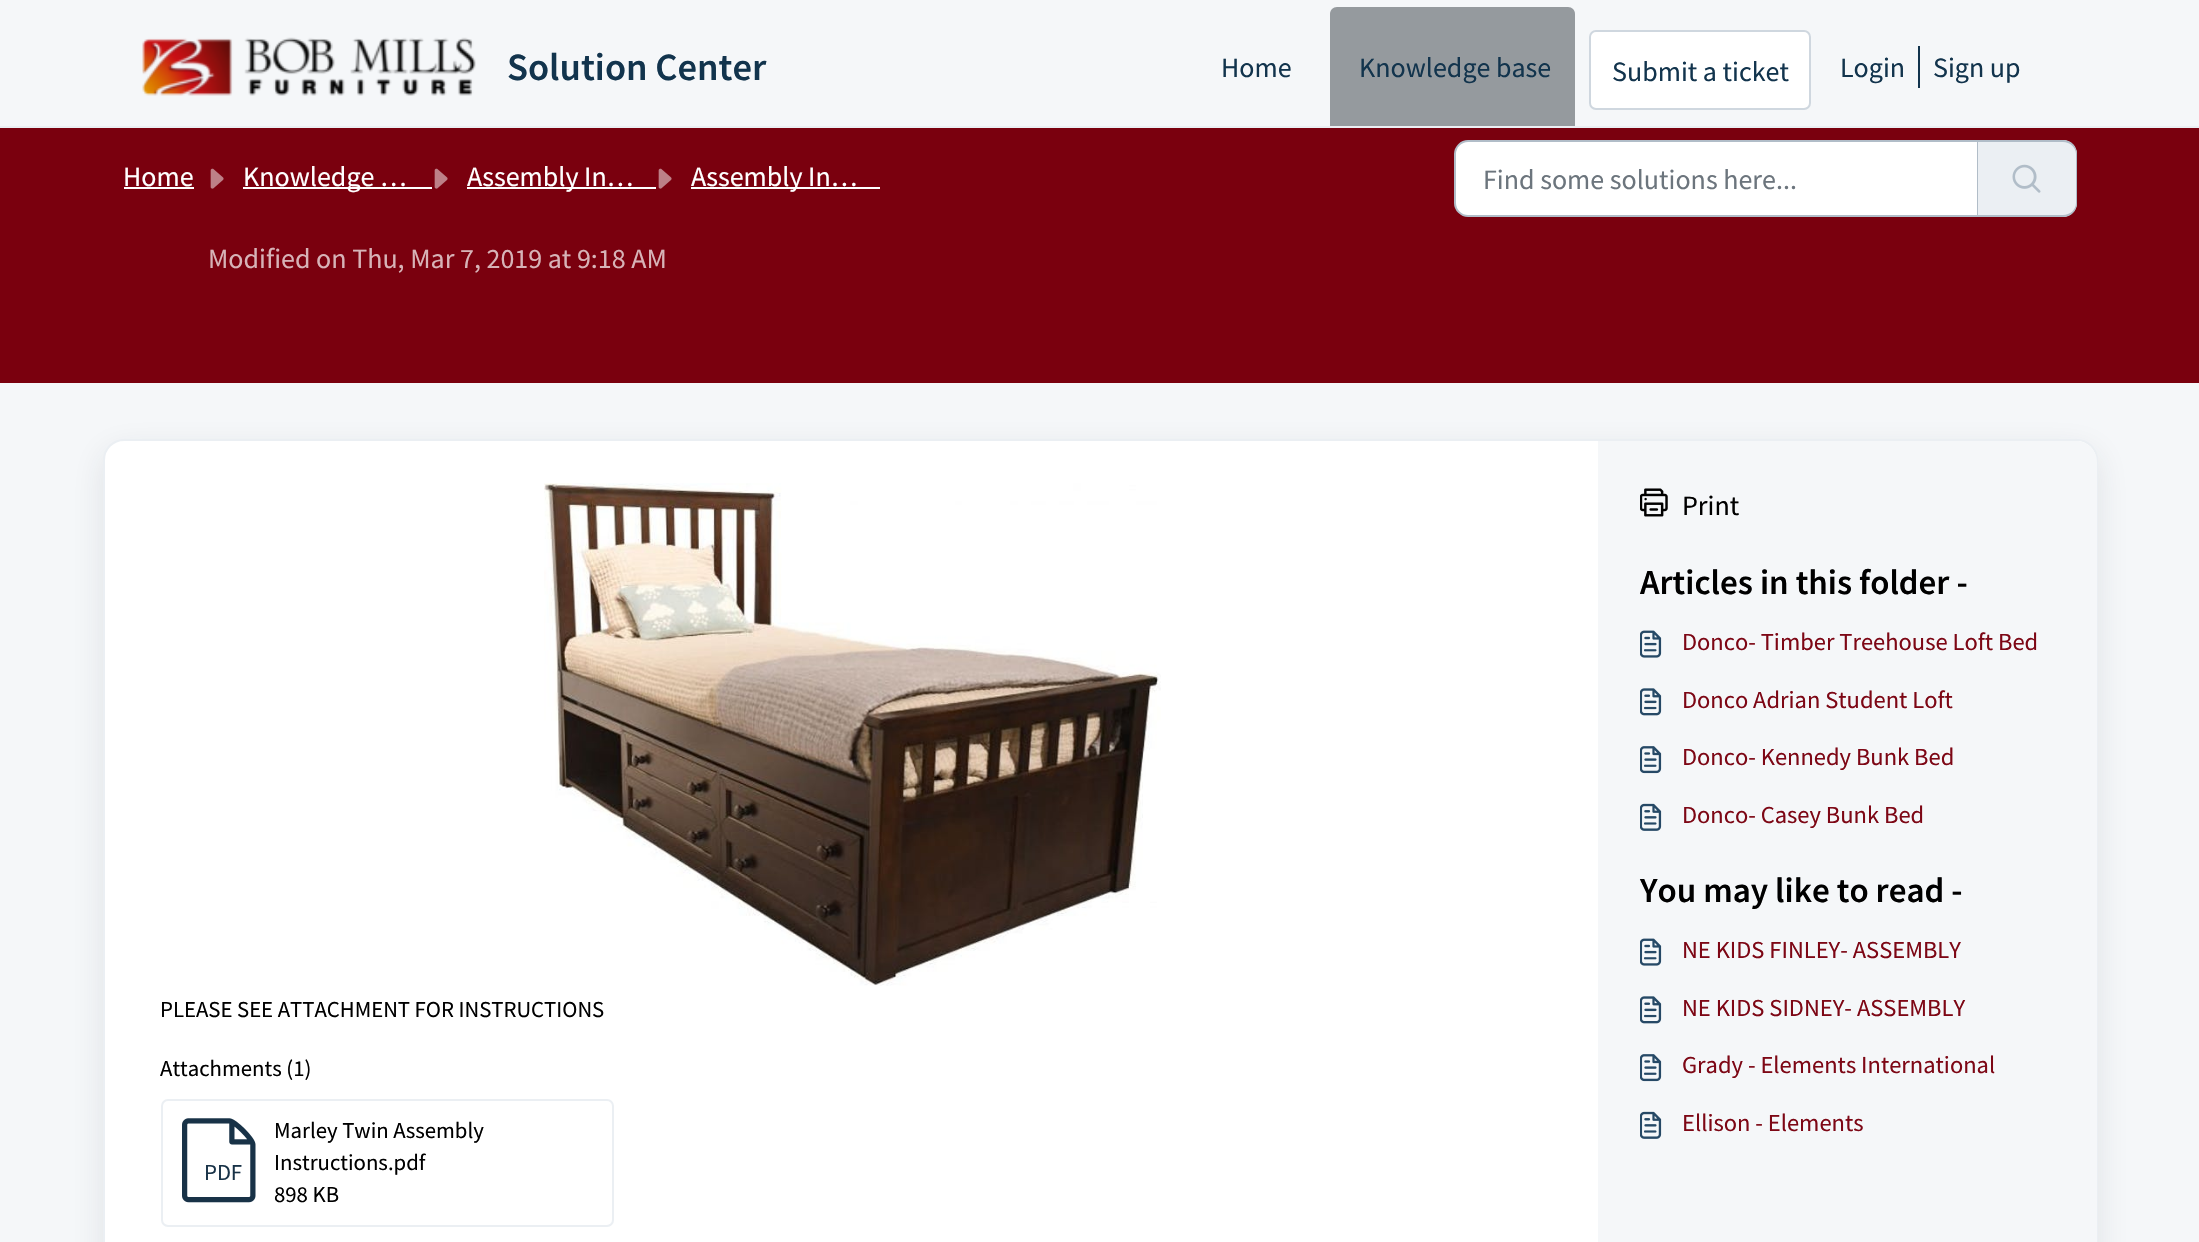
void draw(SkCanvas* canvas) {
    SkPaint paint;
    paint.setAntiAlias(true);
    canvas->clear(0xFFF5F7F9);
    paint.setColor(0xFFEBEFF3);
    canvas->drawRect(SkRect::MakeXYWH(0, 126, 2199, 2), paint);
    canvas->drawImageRect(SkImages::DeferredFromEncodedData(SkData::MakeFromFileName("img1.png")), SkRect::MakeXYWH(142, 37, 334, 59), SkSamplingOptions());
    SkFont font1(fontMgr->matchFamilyStyle("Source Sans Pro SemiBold", SkFontStyle(600, SkFontStyle::kNormal_Width, SkFontStyle::kUpright_Slant)), 38.5f);
    font1.setSubpixel(true);
    paint.setColor(0xFF12344D);
    canvas->drawString("Solution Center", 507, 80, font1, paint);
    SkFont font2(fontMgr->matchFamilyStyle("Source Sans Pro", SkFontStyle::Normal()), 28);
    font2.setSubpixel(true);
    canvas->drawString("Home", 1221, 77, font2, paint);
    paint.setColor(0xFF959A9E);
    canvas->drawPath(SkPathBuilder().moveTo(1337, 7).lineTo(1568, 7).cubicTo(1572, 7, 1575, 10, 1575, 14).lineTo(1575, 126).lineTo(1330, 126).lineTo(1330, 14).cubicTo(1330, 10, 1333, 7, 1337, 7).close().detach(), paint);
    paint.setColor(0xFF12344D);
    canvas->drawString("Knowledge base", 1359, 77, font2, paint);
    paint.setColor(0xFFFFFFFF);
    canvas->drawRoundRect(SkRect::MakeXYWH(1590, 31, 220, 78), 6, 6, paint);
    paint.setStyle(SkPaint::kStroke_Style);
    paint.setStrokeWidth(2);
    paint.setColor(0xFFCFD7DF);
    canvas->drawRoundRect(SkRect::MakeXYWH(1590, 31, 220, 78), 6, 6, paint);
    paint.setStyle(SkPaint::kFill_Style);
    paint.setColor(0xFF12344D);
    canvas->drawString("Submit a ticket", 1612, 81, font2, paint);
    canvas->drawString("Login", 1840, 77, font2, paint);
    canvas->drawRect(SkRect::MakeXYWH(1918, 46, 2, 42), paint);
    canvas->drawString("Sign up", 1933, 77, font2, paint);
    paint.setColor(0xFF7A000E);
    canvas->drawRect(SkRect::MakeXYWH(0, 128, 2199, 255), paint);
    paint.setColor(0xFFFFFFFF);
    canvas->drawString("Home", 123, 186, font2, paint);
    canvas->drawRect(SkRect::MakeXYWH(124, 187, 70, 2), paint);
    canvas->drawImageRect(SkImages::DeferredFromEncodedData(SkData::MakeFromFileName("img2.png")), SkRect::MakeXYWH(210, 168, 14, 21), SkSamplingOptions());
    canvas->drawRect(SkRect::MakeXYWH(243, 187, 189, 2), paint);
    canvas->drawString("Knowledge …", 243, 186, font2, paint);
    canvas->drawImageRect(SkImages::DeferredFromEncodedData(SkData::MakeFromFileName("img2.png")), SkRect::MakeXYWH(434, 168, 14, 21), SkSamplingOptions());
    canvas->drawRect(SkRect::MakeXYWH(467, 187, 189, 2), paint);
    canvas->drawString("Assembly In…", 467, 186, font2, paint);
    canvas->drawImageRect(SkImages::DeferredFromEncodedData(SkData::MakeFromFileName("img2.png")), SkRect::MakeXYWH(658, 168, 14, 21), SkSamplingOptions());
    canvas->drawRect(SkRect::MakeXYWH(691, 187, 189, 2), paint);
    canvas->drawString("Assembly In…", 691, 186, font2, paint);
    canvas->drawPath(SkPathBuilder().moveTo(1468, 141).lineTo(1978, 141).lineTo(1978, 216).lineTo(1468, 216).cubicTo(1461, 216, 1455, 210, 1455, 203).lineTo(1455, 154).cubicTo(1455, 147, 1461, 141, 1468, 141).close().detach(), paint);
    paint.setStyle(SkPaint::kStroke_Style);
    paint.setColor(0xFFB1BDC8);
    canvas->drawPath(SkPathBuilder().moveTo(1468, 141).lineTo(1978, 141).lineTo(1978, 216).lineTo(1468, 216).cubicTo(1461, 216, 1455, 210, 1455, 203).lineTo(1455, 154).cubicTo(1455, 147, 1461, 141, 1468, 141).close().detach(), paint);
    paint.setStyle(SkPaint::kFill_Style);
    paint.setColor(0xFF6C757D);
    canvas->drawString("Find some solutions here...", 1483, 189, font2, paint);
    paint.setColor(0xFFEBEFF3);
    canvas->drawPath(SkPathBuilder().moveTo(1978, 140).lineTo(2063, 140).cubicTo(2070.5f, 140, 2077, 146.5f, 2077, 154).lineTo(2077, 203).cubicTo(2077, 210.5f, 2070.5f, 217, 2063, 217).lineTo(1978, 217).close().detach(), paint);
    paint.setColor(0xFFB1BDC8);
    canvas->drawPath(SkPathBuilder(SkPathFillType::kEvenOdd).moveTo(1978, 140).lineTo(2063, 140).cubicTo(2071, 140, 2077, 146, 2077, 154).lineTo(2077, 203).cubicTo(2077, 211, 2071, 217, 2063, 217).lineTo(1978, 217).close().moveTo(1978, 142).lineTo(2063, 142).cubicTo(2070, 142, 2076, 147, 2076, 154).lineTo(2076, 203).cubicTo(2076, 210, 2070, 215, 2063, 215).lineTo(1978, 215).close().detach(), paint);
    canvas->drawImageRect(SkImages::DeferredFromEncodedData(SkData::MakeFromFileName("img3.png")), SkRect::MakeXYWH(2012, 164, 29, 29), SkSamplingOptions());
    paint.setColor(0xFFD7B3B7);
    canvas->drawString("Modified on Thu, Mar 7, 2019 at 9:18 AM", 208, 268, font2, paint);
    paint.setColor(0x1A27313A);
    paint.setMaskFilter(SkMaskFilter::MakeBlur(kNormal_SkBlurStyle, 16.5f));
    canvas->drawRoundRect(SkRect::MakeXYWH(103, 450, 1995, 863), 21, 21, paint);
    paint.setMaskFilter(nullptr);
    paint.setColor(0xFFFFFFFF);
    canvas->drawRoundRect(SkRect::MakeXYWH(104, 440, 1993, 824), 20, 20, paint);
    paint.setStyle(SkPaint::kStroke_Style);
    paint.setColor(0xFFEBEFF3);
    canvas->drawRoundRect(SkRect::MakeXYWH(104, 440, 1993, 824), 20, 20, paint);
    canvas->drawImageRect(SkImages::DeferredFromEncodedData(SkData::MakeFromFileName("img4.png")), SkRect::MakeXYWH(544, 483, 617, 503), SkSamplingOptions());
    SkFont font3(fontMgr->matchFamilyStyle("Source Sans Pro", SkFontStyle::Normal()), 22.75f);
    font3.setSubpixel(true);
    paint.setStyle(SkPaint::kFill_Style);
    paint.setColor(0xFF000000);
    canvas->drawString("PLEASE SEE ATTACHMENT FOR INSTRUCTIONS", 160, 1017, font3, paint);
    canvas->drawString("Attachments (1)", 160, 1076, font3, paint);
    paint.setStyle(SkPaint::kStroke_Style);
    paint.setColor(0xFFEBEFF3);
    canvas->drawRoundRect(SkRect::MakeXYWH(162, 1100, 451, 126), 6, 6, paint);
    canvas->drawImageRect(SkImages::DeferredFromEncodedData(SkData::MakeFromFileName("img5.png")), SkRect::MakeXYWH(182, 1118, 74, 85), SkSamplingOptions());
    paint.setStyle(SkPaint::kFill_Style);
    paint.setColor(0xFF183247);
    canvas->drawString("PDF", 204, 1180, font3, paint);
    paint.setColor(0xFF000000);
    canvas->drawString("Marley Twin Assembly", 274, 1138, font3, paint);
    canvas->drawString("Instructions.pdf", 274, 1170, font3, paint);
    canvas->drawString("898 KB", 274, 1202, font3, paint);
    paint.setColor(0xFFF5F7F9);
    canvas->drawPath(SkPathBuilder().moveTo(1598, 441).lineTo(2076, 441).cubicTo(2087.5f, 441, 2097, 450.5f, 2097, 462).lineTo(2097, 1242).cubicTo(2097, 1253.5f, 2087.5f, 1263, 2076, 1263).lineTo(1598, 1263).close().detach(), paint);
    canvas->drawImageRect(SkImages::DeferredFromEncodedData(SkData::MakeFromFileName("img6.png")), SkRect::MakeXYWH(1640, 488, 28, 29), SkSamplingOptions());
    paint.setColor(0xFF000000);
    canvas->drawString("Print", 1682, 515, font2, paint);
    SkFont font4(fontMgr->matchFamilyStyle("Source Sans Pro SemiBold", SkFontStyle(600, SkFontStyle::kNormal_Width, SkFontStyle::kUpright_Slant)), 35);
    font4.setSubpixel(true);
    canvas->drawString("Articles in this folder -", 1640, 594, font4, paint);
    canvas->drawImageRect(SkImages::DeferredFromEncodedData(SkData::MakeFromFileName("img7.png")), SkRect::MakeXYWH(1640, 630, 22, 28), SkSamplingOptions());
    SkFont font5(fontMgr->matchFamilyStyle("Source Sans Pro", SkFontStyle::Normal()), 24.5f);
    font5.setSubpixel(true);
    paint.setColor(0xFF7D0715);
    canvas->drawString("Donco- Timber Treehouse Loft Bed", 1682, 650, font5, paint);
    canvas->drawImageRect(SkImages::DeferredFromEncodedData(SkData::MakeFromFileName("img8.png")), SkRect::MakeXYWH(1640, 688, 22, 28), SkSamplingOptions());
    canvas->drawString("Donco Adrian Student Loft", 1682, 708, font5, paint);
    canvas->drawImageRect(SkImages::DeferredFromEncodedData(SkData::MakeFromFileName("img9.png")), SkRect::MakeXYWH(1640, 746, 22, 28), SkSamplingOptions());
    canvas->drawString("Donco- Kennedy Bunk Bed", 1682, 765, font5, paint);
    canvas->drawImageRect(SkImages::DeferredFromEncodedData(SkData::MakeFromFileName("img10.png")), SkRect::MakeXYWH(1640, 803, 22, 28), SkSamplingOptions());
    canvas->drawString("Donco- Casey Bunk Bed", 1682, 823, font5, paint);
    paint.setColor(0xFF000000);
    canvas->drawString("You may like to read -", 1640, 902, font4, paint);
    canvas->drawImageRect(SkImages::DeferredFromEncodedData(SkData::MakeFromFileName("img7.png")), SkRect::MakeXYWH(1640, 938, 22, 28), SkSamplingOptions());
    paint.setColor(0xFF7D0715);
    canvas->drawString("NE KIDS FINLEY- ASSEMBLY", 1682, 958, font5, paint);
    canvas->drawImageRect(SkImages::DeferredFromEncodedData(SkData::MakeFromFileName("img8.png")), SkRect::MakeXYWH(1640, 996, 22, 28), SkSamplingOptions());
    canvas->drawString("NE KIDS SIDNEY- ASSEMBLY", 1682, 1016, font5, paint);
    canvas->drawImageRect(SkImages::DeferredFromEncodedData(SkData::MakeFromFileName("img9.png")), SkRect::MakeXYWH(1640, 1054, 22, 28), SkSamplingOptions());
    canvas->drawString("Grady - Elements International", 1682, 1073, font5, paint);
    canvas->drawImageRect(SkImages::DeferredFromEncodedData(SkData::MakeFromFileName("img10.png")), SkRect::MakeXYWH(1640, 1111, 22, 28), SkSamplingOptions());
    canvas->drawString("Ellison - Elements", 1682, 1131, font5, paint);
}
